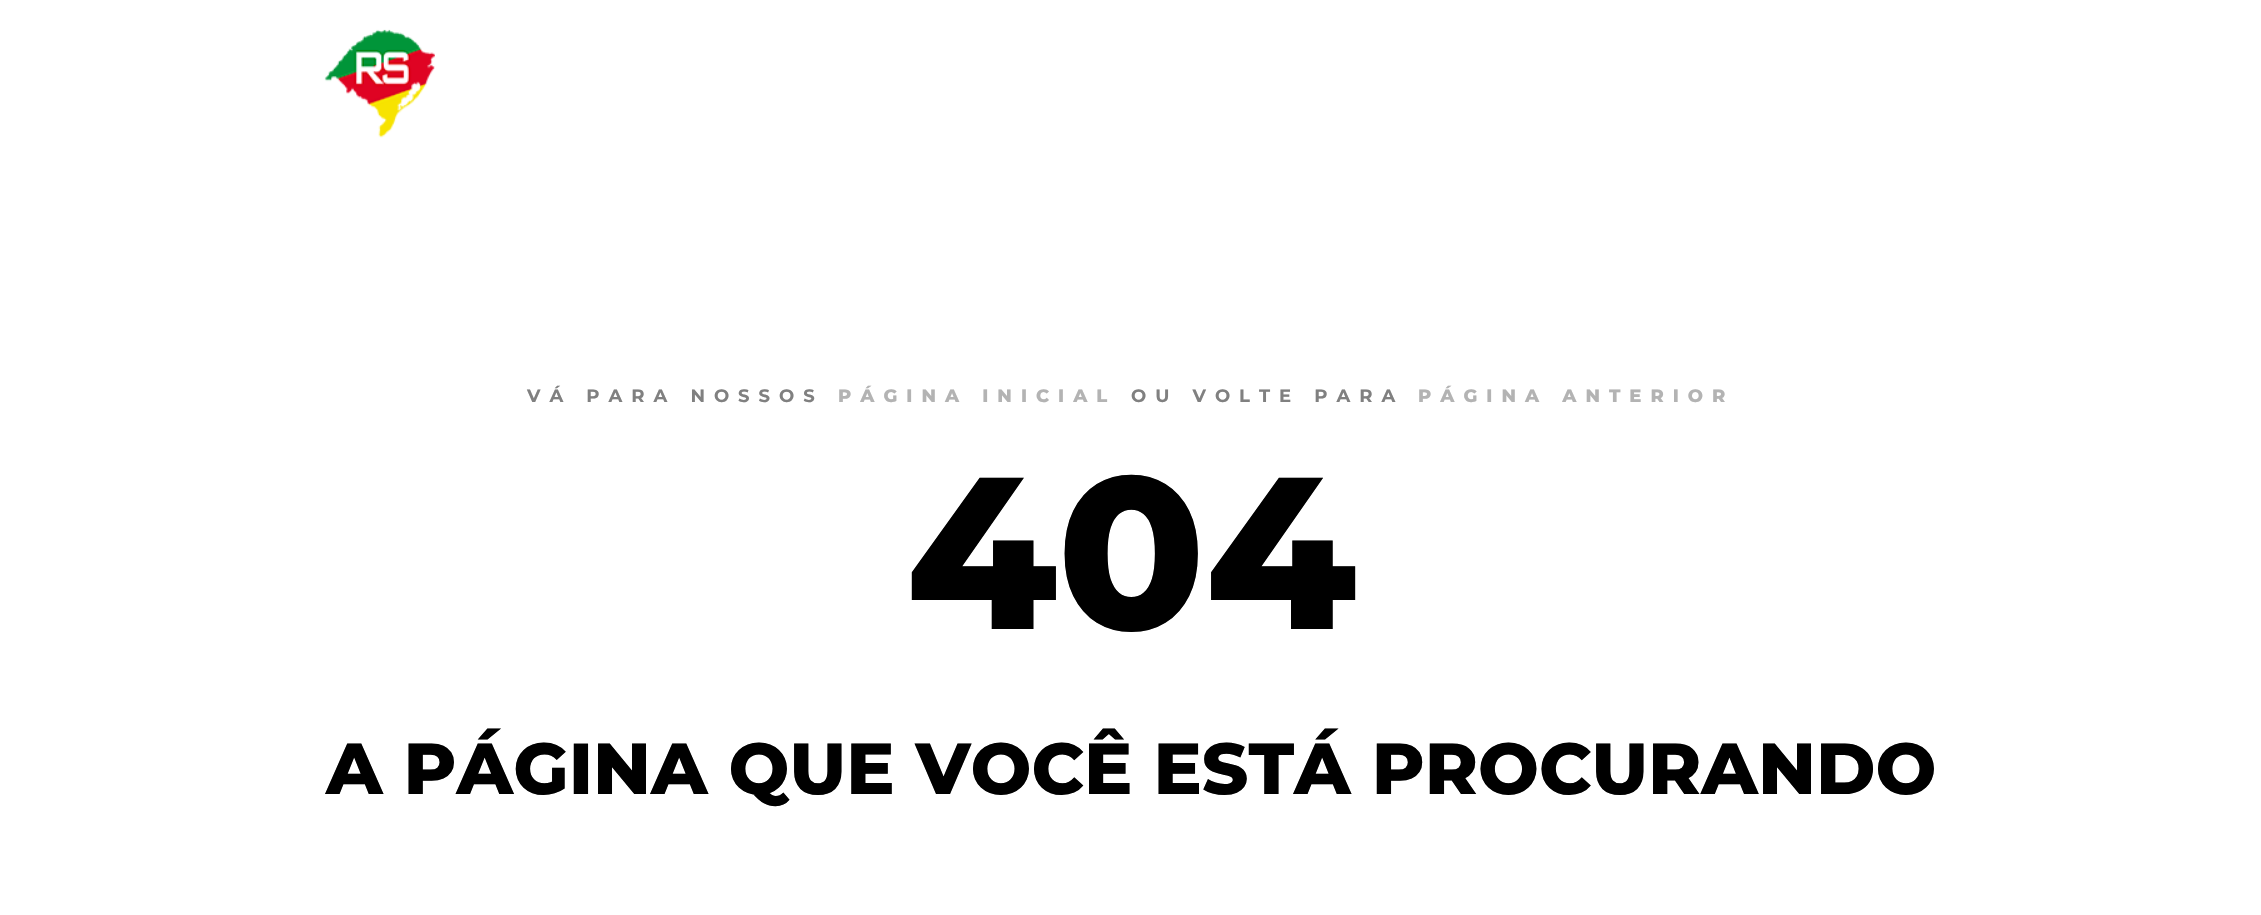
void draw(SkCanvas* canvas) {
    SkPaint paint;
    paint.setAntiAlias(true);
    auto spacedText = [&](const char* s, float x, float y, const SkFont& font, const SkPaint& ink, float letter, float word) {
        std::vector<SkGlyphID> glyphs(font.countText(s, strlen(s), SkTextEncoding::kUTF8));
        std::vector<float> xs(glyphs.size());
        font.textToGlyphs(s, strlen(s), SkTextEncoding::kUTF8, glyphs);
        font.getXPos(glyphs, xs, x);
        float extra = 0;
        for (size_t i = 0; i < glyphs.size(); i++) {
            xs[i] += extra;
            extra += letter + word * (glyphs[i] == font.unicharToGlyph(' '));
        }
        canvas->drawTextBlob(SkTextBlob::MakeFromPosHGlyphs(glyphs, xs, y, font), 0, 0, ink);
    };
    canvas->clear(0xFFFFFFFF);
    canvas->drawImageRect(SkImages::DeferredFromEncodedData(SkData::MakeFromFileName("img1.png")), SkRect::MakeXYWH(324, 29, 111, 109), SkSamplingOptions());
    SkFont font1(fontMgr->matchFamilyStyle("Montserrat", SkFontStyle::Bold()), 18);
    font1.setSubpixel(true);
    paint.setColor(0xFF808080);
    spacedText("VÁ PARA NOSSOS", 527, 402, font1, paint, 9, 0);
    SkFont font2(fontMgr->matchFamilyStyle("Montserrat", SkFontStyle(800, SkFontStyle::kNormal_Width, SkFontStyle::kUpright_Slant)), 18);
    font2.setSubpixel(true);
    paint.setColor(0xFFB3B3B3);
    spacedText("PÁGINA INICIAL", 838, 402, font2, paint, 9, 0);
    paint.setColor(0xFF808080);
    spacedText("OU VOLTE PARA", 1131, 402, font1, paint, 9, 0);
    paint.setColor(0xFFB3B3B3);
    spacedText("PÁGINA ANTERIOR", 1418, 402, font2, paint, 9, 0);
    SkFont font3(fontMgr->matchFamilyStyle("Montserrat", SkFontStyle(800, SkFontStyle::kNormal_Width, SkFontStyle::kUpright_Slant)), 216);
    font3.setSubpixel(true);
    paint.setColor(0xFF000000);
    canvas->drawString("404", 906, 629, font3, paint);
    SkFont font4(fontMgr->matchFamilyStyle("Montserrat", SkFontStyle(800, SkFontStyle::kNormal_Width, SkFontStyle::kUpright_Slant)), 72);
    font4.setSubpixel(true);
    canvas->drawString("A PÁGINA QUE VOCÊ ESTÁ PROCURANDO", 326, 794, font4, paint);
}
